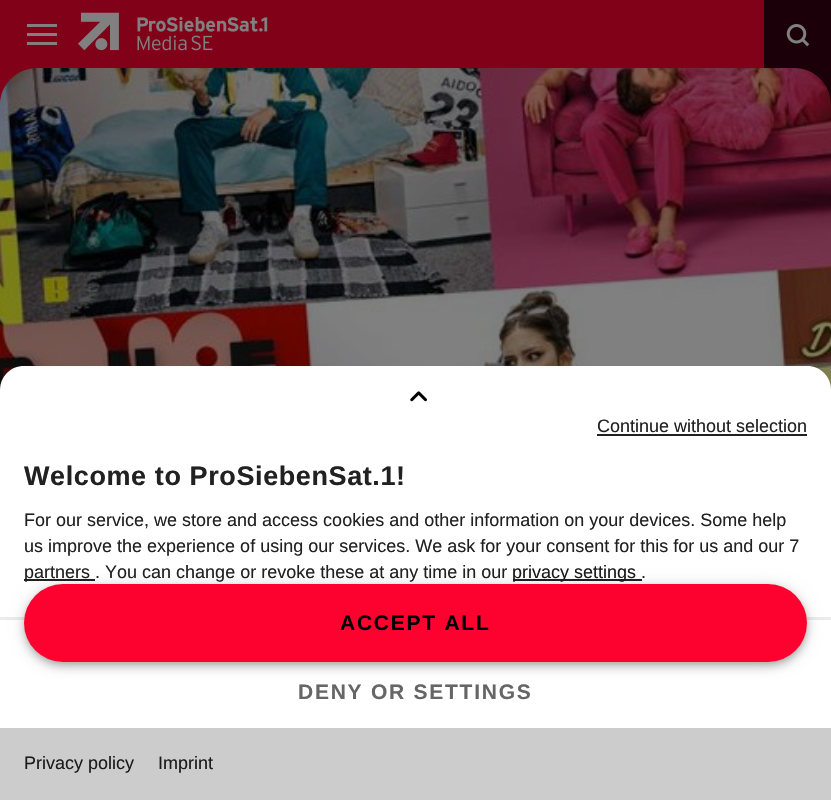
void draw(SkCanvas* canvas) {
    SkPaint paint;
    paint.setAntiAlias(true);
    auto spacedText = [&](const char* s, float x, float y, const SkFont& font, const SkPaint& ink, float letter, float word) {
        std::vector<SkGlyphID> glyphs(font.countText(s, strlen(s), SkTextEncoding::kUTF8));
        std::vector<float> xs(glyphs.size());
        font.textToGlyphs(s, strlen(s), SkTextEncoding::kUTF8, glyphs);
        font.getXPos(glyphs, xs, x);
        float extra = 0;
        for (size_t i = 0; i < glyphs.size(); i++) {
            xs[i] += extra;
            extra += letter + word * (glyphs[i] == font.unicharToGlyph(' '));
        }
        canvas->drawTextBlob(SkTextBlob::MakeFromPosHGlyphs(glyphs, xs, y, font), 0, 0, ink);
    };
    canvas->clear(0xFFFFFFFF);
    paint.setColor(0xFF800118);
    canvas->drawRect(SkRect::MakeXYWH(0, 0, 764, 68), paint);
    canvas->drawImageRect(SkImages::DeferredFromEncodedData(SkData::MakeFromFileName("img3.png")), SkRect::MakeXYWH(0, 68, 831, 322), SkSamplingOptions());
    canvas->drawPath(SkPathBuilder().moveTo(38, 30).cubicTo(17, 30, 0, 47, 0, 68).lineTo(0, 105).cubicTo(0, 84, 17, 68, 38, 68).lineTo(38, 105).close().detach(), paint);
    paint.setColor(0xFF808080);
    canvas->drawRect(SkRect::MakeXYWH(27, 33, 30, 3), paint);
    canvas->drawRect(SkRect::MakeXYWH(27, 24, 30, 3), paint);
    canvas->drawRect(SkRect::MakeXYWH(27, 42, 30, 3), paint);
    canvas->drawImageRect(SkImages::DeferredFromEncodedData(SkData::MakeFromFileName("img1.png")), SkRect::MakeXYWH(78, 12, 190, 39), SkSamplingOptions());
    paint.setColor(0xFF1C0009);
    canvas->drawPath(SkPathBuilder().moveTo(794, 30).lineTo(794, 68).cubicTo(814, 68, 831, 84, 831, 105).lineTo(831, 67).cubicTo(831, 47, 814, 30, 794, 30).close().detach(), paint);
    canvas->drawRect(SkRect::MakeXYWH(764, 0, 67, 68), paint);
    canvas->drawImageRect(SkImages::DeferredFromEncodedData(SkData::MakeFromFileName("img2.png")), SkRect::MakeXYWH(786, 24, 24, 23), SkSamplingOptions());
    paint.setColor(0xFFFFFFFF);
    canvas->drawPath(SkPathBuilder().moveTo(24, 366).lineTo(807, 366).cubicTo(820.5f, 366, 831, 376.5f, 831, 390).lineTo(831, 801).lineTo(0, 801).lineTo(0, 390).cubicTo(0, 376.5f, 10.5f, 366, 24, 366).close().detach(), paint);
    canvas->drawImageRect(SkImages::DeferredFromEncodedData(SkData::MakeFromFileName("img4.png")), SkRect::MakeXYWH(410, 391, 17, 11), SkSamplingOptions());
    SkFont font1(fontMgr->matchFamilyStyle("Liberation Sans", SkFontStyle::Normal()), 18);
    font1.setSubpixel(true);
    paint.setColor(0xFF212121);
    canvas->drawString("Continue without selection", 597, 432, font1, paint);
    canvas->drawRect(SkRect::MakeXYWH(597, 434, 210, 2), paint);
    SkFont font2(fontMgr->matchFamilyStyle("Liberation Sans", SkFontStyle::Bold()), 27);
    font2.setSubpixel(true);
    spacedText("Welcome to ProSiebenSat.1!", 24, 485, font2, paint, 0.6f, 0);
    canvas->drawString("For our service, we store and access cookies and other information on your devices. Some help", 24, 526, font1, paint);
    canvas->drawString("us improve the experience of using our services. We ask for your consent for this for us and our 7", 24, 552, font1, paint);
    canvas->drawRect(SkRect::MakeXYWH(24, 579, 71, 2), paint);
    canvas->drawString("partners . You can change or revoke these at any time in our", 24, 578, font1, paint);
    canvas->drawRect(SkRect::MakeXYWH(513, 579, 129, 2), paint);
    paint.setColor(0xFF1B1B1B);
    canvas->drawString("privacy settings", 512, 578, font1, paint);
    paint.setColor(0xFF212121);
    canvas->drawString(".", 641, 578, font1, paint);
    paint.setColor(0xFFEBEBEB);
    canvas->drawRect(SkRect::MakeXYWH(0, 617, 831, 3), paint);
    paint.setColor(0x33000000);
    paint.setMaskFilter(SkMaskFilter::MakeBlur(kNormal_SkBlurStyle, 3));
    canvas->drawRoundRect(SkRect::MakeXYWH(26, 588, 780, 75), 37.5f, 37.5f, paint);
    paint.setMaskFilter(nullptr);
    paint.setColor(0x1F000000);
    paint.setMaskFilter(SkMaskFilter::MakeBlur(kNormal_SkBlurStyle, 7.5f));
    canvas->drawRoundRect(SkRect::MakeXYWH(24, 585, 783, 78), 39, 39, paint);
    paint.setMaskFilter(nullptr);
    paint.setColor(0x24000000);
    paint.setMaskFilter(SkMaskFilter::MakeBlur(kNormal_SkBlurStyle, 4));
    canvas->drawRoundRect(SkRect::MakeXYWH(24, 590, 783, 78), 39, 39, paint);
    paint.setMaskFilter(nullptr);
    paint.setColor(0xFFFD022F);
    canvas->drawRoundRect(SkRect::MakeXYWH(24, 584, 783, 78), 39, 39, paint);
    SkFont font3(fontMgr->matchFamilyStyle("Liberation Sans", SkFontStyle::Bold()), 21);
    font3.setSubpixel(true);
    paint.setColor(0xFF000000);
    spacedText("ACCEPT ALL", 340, 630, font3, paint, 1.75f, 0);
    paint.setColor(0xFF666666);
    spacedText("DENY OR SETTINGS", 298, 699, font3, paint, 1.75f, 0);
    paint.setColor(0xFFCCCCCC);
    canvas->drawRect(SkRect::MakeXYWH(0, 728, 831, 72), paint);
    paint.setColor(0xFF1B1B1B);
    canvas->drawString("Privacy policy", 24, 769, font1, paint);
    canvas->drawString("Imprint", 158, 769, font1, paint);
}
